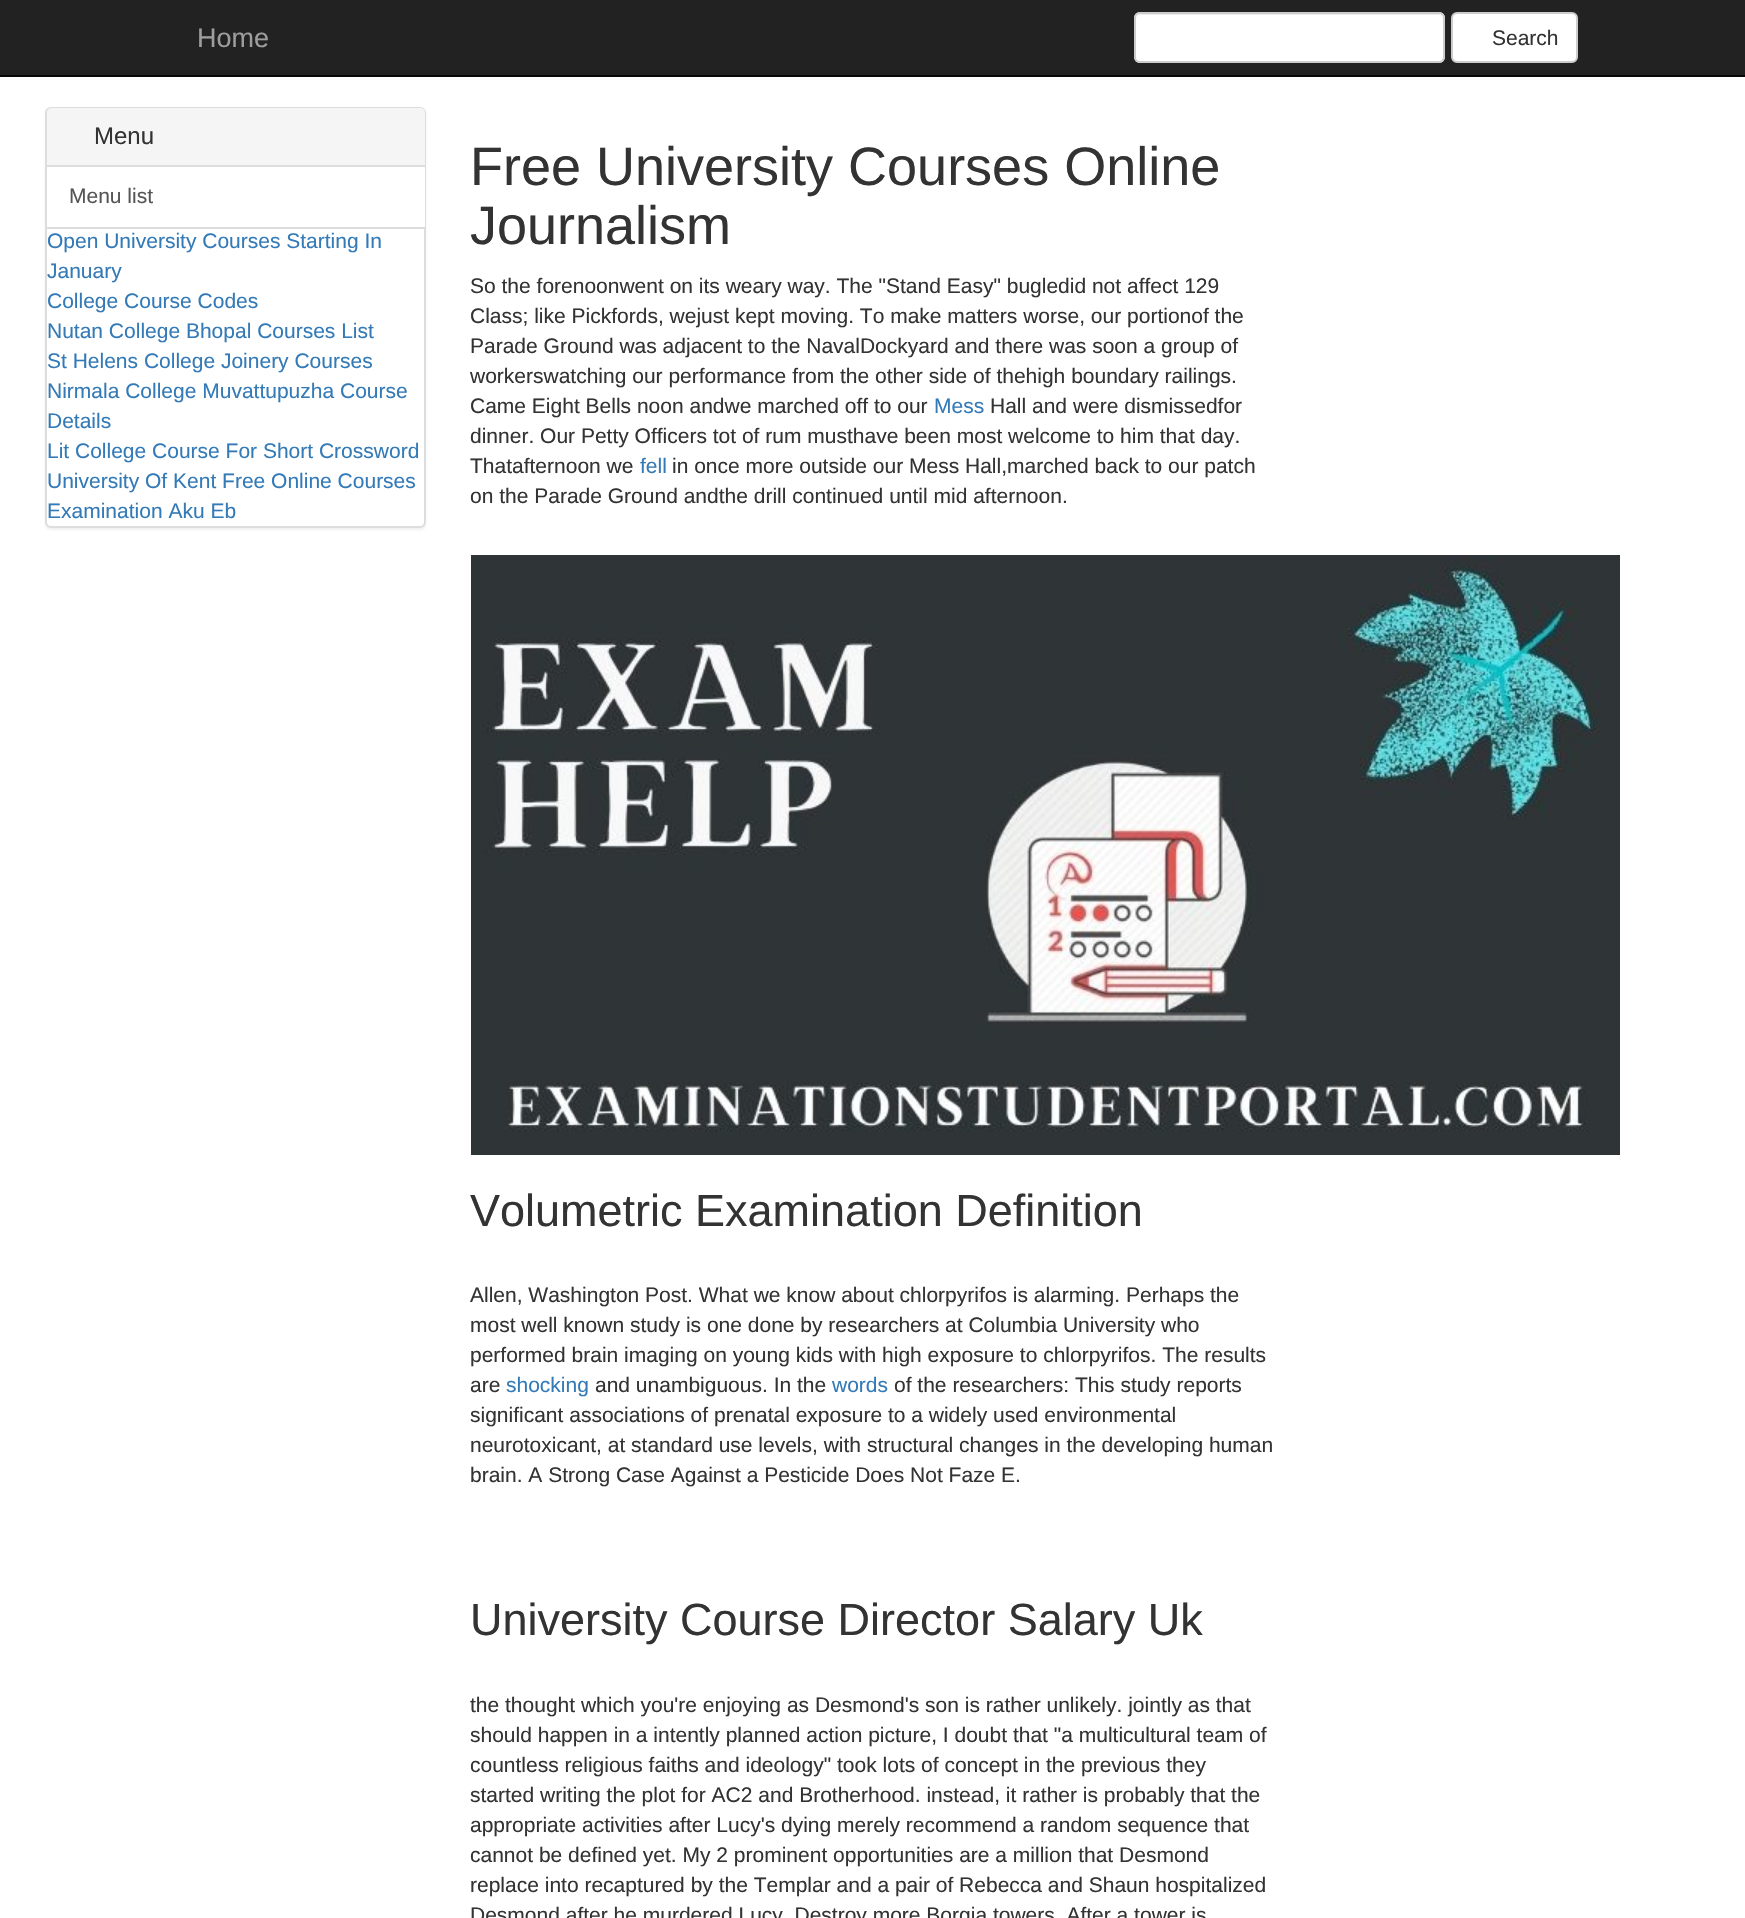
void draw(SkCanvas* canvas) {
    SkPaint paint;
    paint.setAntiAlias(true);
    canvas->clear(0xFFFFFFFF);
    paint.setColor(0xFF222222);
    canvas->drawRect(SkRect::MakeXYWH(0, 0, 1745, 75), paint);
    paint.setColor(0xFF080808);
    canvas->drawRect(SkRect::MakeXYWH(0, 75, 1745, 2), paint);
    SkFont font1(fontMgr->matchFamilyStyle("Liberation Sans", SkFontStyle::Normal()), 27);
    font1.setSubpixel(true);
    paint.setColor(0xFF9D9D9D);
    canvas->drawString("Home", 197, 47, font1, paint);
    paint.setColor(0xFFFFFFFF);
    canvas->drawRoundRect(SkRect::MakeXYWH(1134, 12, 311, 51), 6, 6, paint);
    paint.setColor(0xFFECECEC);
    canvas->drawPath(SkPathBuilder().moveTo(1140, 15).lineTo(1438, 15).cubicTo(1441, 15, 1443, 17, 1443, 20).cubicTo(1443, 17, 1441, 14, 1438, 14).lineTo(1141, 14).cubicTo(1138, 14, 1136, 17, 1136, 20).cubicTo(1136, 17, 1138, 15, 1140, 15).close().detach(), paint);
    paint.setStyle(SkPaint::kStroke_Style);
    paint.setStrokeWidth(2);
    paint.setColor(0xFFCCCCCC);
    canvas->drawRoundRect(SkRect::MakeXYWH(1135, 13, 309, 49), 5, 5, paint);
    paint.setStyle(SkPaint::kFill_Style);
    paint.setColor(0xFFFFFFFF);
    canvas->drawRoundRect(SkRect::MakeXYWH(1452, 13, 125, 49), 5, 5, paint);
    paint.setStyle(SkPaint::kStroke_Style);
    paint.setColor(0xFFCCCCCC);
    canvas->drawRoundRect(SkRect::MakeXYWH(1452, 13, 125, 49), 5, 5, paint);
    SkFont font2(fontMgr->matchFamilyStyle("Liberation Sans", SkFontStyle::Normal()), 21);
    font2.setSubpixel(true);
    paint.setStyle(SkPaint::kFill_Style);
    paint.setColor(0xFF333333);
    canvas->drawString("Search", 1492, 45, font2, paint);
    paint.setColor(0x0D000000);
    paint.setMaskFilter(SkMaskFilter::MakeBlur(kNormal_SkBlurStyle, 1));
    canvas->drawRoundRect(SkRect::MakeXYWH(45, 108, 381, 422), 6, 6, paint);
    paint.setMaskFilter(nullptr);
    paint.setColor(0xFFFFFFFF);
    canvas->drawRoundRect(SkRect::MakeXYWH(46, 108, 379, 419), 5, 5, paint);
    paint.setStyle(SkPaint::kStroke_Style);
    paint.setColor(0xFFDDDDDD);
    canvas->drawRoundRect(SkRect::MakeXYWH(46, 108, 379, 419), 5, 5, paint);
    paint.setStyle(SkPaint::kFill_Style);
    paint.setColor(0xFFF5F5F5);
    canvas->drawPath(SkPathBuilder().moveTo(52, 108).lineTo(420, 108).cubicTo(423, 108, 425, 110, 425, 113).lineTo(425, 167).lineTo(47, 167).lineTo(47, 113).cubicTo(47, 110, 49, 108, 52, 108).close().detach(), paint);
    paint.setColor(0xFFDDDDDD);
    canvas->drawRect(SkRect::MakeXYWH(47, 165, 378, 2), paint);
    SkFont font3(fontMgr->matchFamilyStyle("Liberation Sans", SkFontStyle::Normal()), 24);
    font3.setSubpixel(true);
    paint.setColor(0xFF333333);
    canvas->drawString("Menu", 94, 144, font3, paint);
    paint.setColor(0xFFFFFFFF);
    canvas->drawRect(SkRect::MakeXYWH(424, 167, 1, 60), paint);
    paint.setColor(0xFFDDDDDD);
    canvas->drawRect(SkRect::MakeXYWH(47, 227, 378, 2), paint);
    paint.setColor(0xFF555555);
    canvas->drawString("Menu list", 69, 203, font2, paint);
    paint.setColor(0xFF337AB7);
    canvas->drawString("Open University Courses Starting In", 47, 248, font2, paint);
    canvas->drawString("January", 47, 278, font2, paint);
    canvas->drawString("College Course Codes", 47, 308, font2, paint);
    canvas->drawString("Nutan College Bhopal Courses List", 47, 338, font2, paint);
    canvas->drawString("St Helens College Joinery Courses", 47, 368, font2, paint);
    canvas->drawString("Nirmala College Muvattupuzha Course", 47, 398, font2, paint);
    canvas->drawString("Details", 47, 428, font2, paint);
    canvas->drawString("Lit College Course For Short Crossword", 47, 458, font2, paint);
    canvas->drawString("University Of Kent Free Online Courses", 47, 488, font2, paint);
    canvas->drawString("Examination Aku Eb", 47, 518, font2, paint);
    SkFont font4(fontMgr->matchFamilyStyle("Liberation Sans", SkFontStyle::Normal()), 54);
    font4.setSubpixel(true);
    paint.setColor(0xFF333333);
    canvas->drawString("Free University Courses Online", 470, 185, font4, paint);
    canvas->drawString("Journalism", 470, 244, font4, paint);
    canvas->drawString("So the forenoonwent on its weary way. The \"Stand Easy\" bugledid not affect 129", 470, 293, font2, paint);
    canvas->drawString("Class; like Pickfords, wejust kept moving. To make matters worse, our portionof the", 470, 323, font2, paint);
    canvas->drawString("Parade Ground was adjacent to the NavalDockyard and there was soon a group of", 470, 353, font2, paint);
    canvas->drawString("workerswatching our performance from the other side of thehigh boundary railings.", 470, 383, font2, paint);
    canvas->drawString("Came Eight Bells noon andwe marched off to our", 470, 413, font2, paint);
    paint.setColor(0xFF337AB7);
    canvas->drawString("Mess", 934, 413, font2, paint);
    paint.setColor(0xFF333333);
    canvas->drawString("Hall and were dismissedfor", 990, 413, font2, paint);
    canvas->drawString("dinner. Our Petty Officers tot of rum musthave been most welcome to him that day.", 470, 443, font2, paint);
    canvas->drawString("Thatafternoon we", 470, 473, font2, paint);
    paint.setColor(0xFF337AB7);
    canvas->drawString("fell", 640, 473, font2, paint);
    paint.setColor(0xFF333333);
    canvas->drawString("in once more outside our Mess Hall,marched back to our patch", 672, 473, font2, paint);
    canvas->drawString("on the Parade Ground andthe drill continued until mid afternoon.", 470, 503, font2, paint);
    canvas->drawImageRect(SkImages::DeferredFromEncodedData(SkData::MakeFromFileName("img1.png")), SkRect::MakeXYWH(471, 555, 1149, 600), SkSamplingOptions());
    SkFont font5(fontMgr->matchFamilyStyle("Liberation Sans", SkFontStyle::Normal()), 45);
    font5.setSubpixel(true);
    canvas->drawString("Volumetric Examination Definition", 470, 1226, font5, paint);
    canvas->drawString("Allen, Washington Post. What we know about chlorpyrifos is alarming. Perhaps the", 470, 1302, font2, paint);
    canvas->drawString("most well known study is one done by researchers at Columbia University who", 470, 1332, font2, paint);
    canvas->drawString("performed brain imaging on young kids with high exposure to chlorpyrifos. The results", 470, 1362, font2, paint);
    canvas->drawString("are", 470, 1392, font2, paint);
    paint.setColor(0xFF337AB7);
    canvas->drawString("shocking", 506, 1392, font2, paint);
    paint.setColor(0xFF333333);
    canvas->drawString("and unambiguous. In the", 595, 1392, font2, paint);
    paint.setColor(0xFF337AB7);
    canvas->drawString("words", 832, 1392, font2, paint);
    paint.setColor(0xFF333333);
    canvas->drawString("of the researchers: This study reports", 894, 1392, font2, paint);
    canvas->drawString("significant associations of prenatal exposure to a widely used environmental", 470, 1422, font2, paint);
    canvas->drawString("neurotoxicant, at standard use levels, with structural changes in the developing human", 470, 1452, font2, paint);
    canvas->drawString("brain. A Strong Case Against a Pesticide Does Not Faze E.", 470, 1482, font2, paint);
    canvas->drawString("University Course Director Salary Uk", 470, 1635, font5, paint);
    canvas->drawString("the thought which you're enjoying as Desmond's son is rather unlikely. jointly as that", 470, 1712, font2, paint);
    canvas->drawString("should happen in a intently planned action picture, I doubt that \"a multicultural team of", 470, 1742, font2, paint);
    canvas->drawString("countless religious faiths and ideology\" took lots of concept in the previous they", 470, 1772, font2, paint);
    canvas->drawString("started writing the plot for AC2 and Brotherhood. instead, it rather is probably that the", 470, 1802, font2, paint);
    canvas->drawString("appropriate activities after Lucy's dying merely recommend a random sequence that", 470, 1832, font2, paint);
    canvas->drawString("cannot be defined yet. My 2 prominent opportunities are a million that Desmond", 470, 1862, font2, paint);
    canvas->drawString("replace into recaptured by the Templar and a pair of Rebecca and Shaun hospitalized", 470, 1892, font2, paint);
    canvas->drawString("Desmond after he murdered Lucy. Destroy more Borgia towers. After a tower is", 470, 1922, font2, paint);
}
